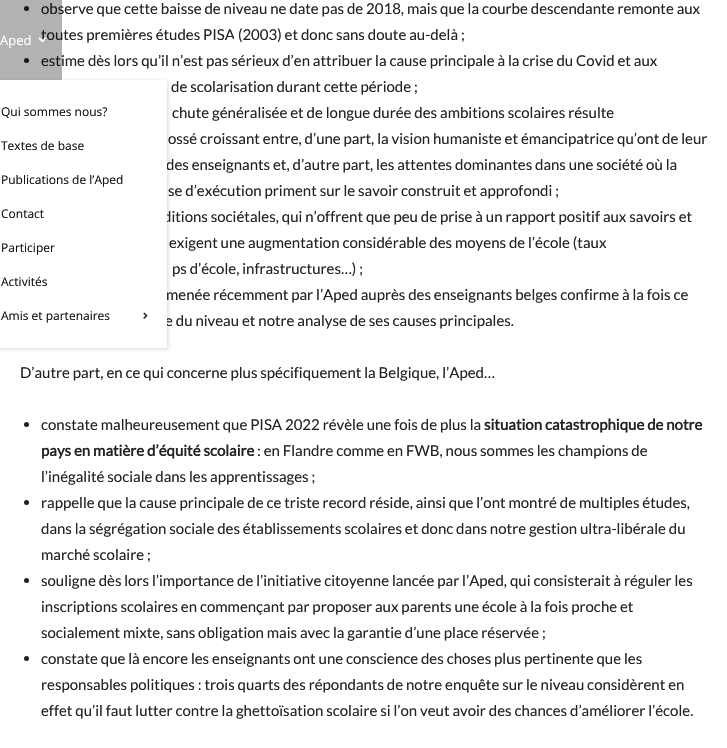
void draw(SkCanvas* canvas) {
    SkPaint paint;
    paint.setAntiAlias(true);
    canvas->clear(0xFFFFFFFF);
    paint.setColor(0xFF222222);
    canvas->drawCircle(26.5f, 8.5f, 2.5f, paint);
    SkFont font1(fontMgr->matchFamilyStyle("Lato", SkFontStyle::Normal()), 15);
    font1.setSubpixel(true);
    canvas->drawString("observe que cette baisse de niveau ne date pas de 2018, mais que la courbe descendante remonte aux", 41, 14, font1, paint);
    canvas->drawString("toutes premières études PISA (2003) et donc sans doute au-delà ;", 41, 40, font1, paint);
    canvas->drawCircle(26.5f, 60.5f, 2.5f, paint);
    canvas->drawString("estime dès lors qu’il n’est pas sérieux d’en attribuer la cause principale à la crise du Covid et aux", 41, 66, font1, paint);
    canvas->drawString("de scolarisation durant cette période ;", 171, 92, font1, paint);
    canvas->drawString("chute généralisée et de longue durée des ambitions scolaires résulte", 172, 118, font1, paint);
    canvas->drawString("ossé croissant entre, d’une part, la vision humaniste et émancipatrice qu’ont de leur", 168, 144, font1, paint);
    canvas->drawString("des enseignants et, d’autre part, les attentes dominantes dans une société où la", 166, 170, font1, paint);
    canvas->drawString("se d’exécution priment sur le savoir construit et approfondi ;", 168, 196, font1, paint);
    canvas->drawString("ditions sociétales, qui n’offrent que peu de prise à un rapport positif aux savoirs et", 163, 222, font1, paint);
    canvas->drawString("exigent une augmentation considérable des moyens de l’école (taux", 169, 248, font1, paint);
    canvas->drawString("ps d’école, infrastructures…) ;", 172, 274, font1, paint);
    canvas->drawString("menée récemment par l’Aped auprès des enseignants belges confirme à la fois ce", 166, 300, font1, paint);
    canvas->drawString("e du niveau et notre analyse de ses causes principales.", 165, 326, font1, paint);
    canvas->drawString("D’autre part, en ce qui concerne plus spécifiquement la Belgique, l’Aped…", 20, 378, font1, paint);
    canvas->drawCircle(26.5f, 424.5f, 2.5f, paint);
    canvas->drawString("constate malheureusement que PISA 2022 révèle une fois de plus la", 41, 430, font1, paint);
    SkFont font2(fontMgr->matchFamilyStyle("Lato", SkFontStyle::Bold()), 15);
    font2.setSubpixel(true);
    canvas->drawString("situation catastrophique de notre", 484, 430, font2, paint);
    canvas->drawString("pays en matière d’équité scolaire", 41, 456, font2, paint);
    canvas->drawString(": en Flandre comme en FWB, nous sommes les champions de", 257, 456, font1, paint);
    canvas->drawString("l’inégalité sociale dans les apprentissages ;", 41, 482, font1, paint);
    canvas->drawCircle(26.5f, 502.5f, 2.5f, paint);
    canvas->drawString("rappelle que la cause principale de ce triste record réside, ainsi que l’ont montré de multiples études,", 41, 508, font1, paint);
    canvas->drawString("dans la ségrégation sociale des établissements scolaires et donc dans notre gestion ultra-libérale du", 41, 534, font1, paint);
    canvas->drawString("marché scolaire ;", 41, 560, font1, paint);
    canvas->drawCircle(26.5f, 580.5f, 2.5f, paint);
    canvas->drawString("souligne dès lors l’importance de l’initiative citoyenne lancée par l’Aped, qui consisterait à réguler les", 41, 586, font1, paint);
    canvas->drawString("inscriptions scolaires en commençant par proposer aux parents une école à la fois proche et", 41, 612, font1, paint);
    canvas->drawString("socialement mixte, sans obligation mais avec la garantie d’une place réservée ;", 41, 638, font1, paint);
    canvas->drawCircle(26.5f, 658.5f, 2.5f, paint);
    canvas->drawString("constate que là encore les enseignants ont une conscience des choses plus pertinente que les", 41, 664, font1, paint);
    canvas->drawString("responsables politiques : trois quarts des répondants de notre enquête sur le niveau considèrent en", 41, 690, font1, paint);
    canvas->drawString("effet qu’il faut lutter contre la ghettoïsation scolaire si l’on veut avoir des chances d’améliorer l’école.", 41, 716, font1, paint);
    paint.setColor(0x26000000);
    paint.setMaskFilter(SkMaskFilter::MakeBlur(kNormal_SkBlurStyle, 2));
    canvas->drawRect(SkRect::MakeXYWH(-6, 81, 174, 268), paint);
    paint.setMaskFilter(nullptr);
    paint.setColor(0x4D000000);
    canvas->drawRect(SkRect::MakeXYWH(0, 0, 62, 80), paint);
    SkFont font3(fontMgr->matchFamilyStyle("Open Sans", SkFontStyle::Normal()), 13);
    font3.setSubpixel(true);
    paint.setColor(0xFFFFFFFF);
    canvas->drawString("Aped", 0, 45, font3, paint);
    canvas->drawImageRect(SkImages::DeferredFromEncodedData(SkData::MakeFromFileName("img1.png")), SkRect::MakeXYWH(38, 37, 9, 6), SkSamplingOptions());
    canvas->drawRect(SkRect::MakeXYWH(0, 80, 167, 268), paint);
    SkFont font4(fontMgr->matchFamilyStyle("Open Sans", SkFontStyle::Normal()), 12);
    font4.setSubpixel(true);
    paint.setColor(0xFF111111);
    canvas->drawString("Qui sommes nous?", 1, 116, font4, paint);
    canvas->drawString("Textes de base", 1, 150, font4, paint);
    canvas->drawString("Publications de l’Aped", 1, 184, font4, paint);
    canvas->drawString("Contact", 1, 218, font4, paint);
    canvas->drawString("Participer", 1, 252, font4, paint);
    canvas->drawString("Activités", 1, 286, font4, paint);
    canvas->drawString("Amis et partenaires", 1, 320, font4, paint);
    canvas->drawImageRect(SkImages::DeferredFromEncodedData(SkData::MakeFromFileName("img2.png")), SkRect::MakeXYWH(143, 312, 5, 7), SkSamplingOptions());
    canvas->drawImageRect(SkImages::DeferredFromEncodedData(SkData::MakeFromFileName("img3.png")), SkRect::MakeXYWH(140, 38, 4, 2), SkSamplingOptions());
    canvas->drawImageRect(SkImages::DeferredFromEncodedData(SkData::MakeFromFileName("img4.png")), SkRect::MakeXYWH(229, 37, 6, 3), SkSamplingOptions());
}
